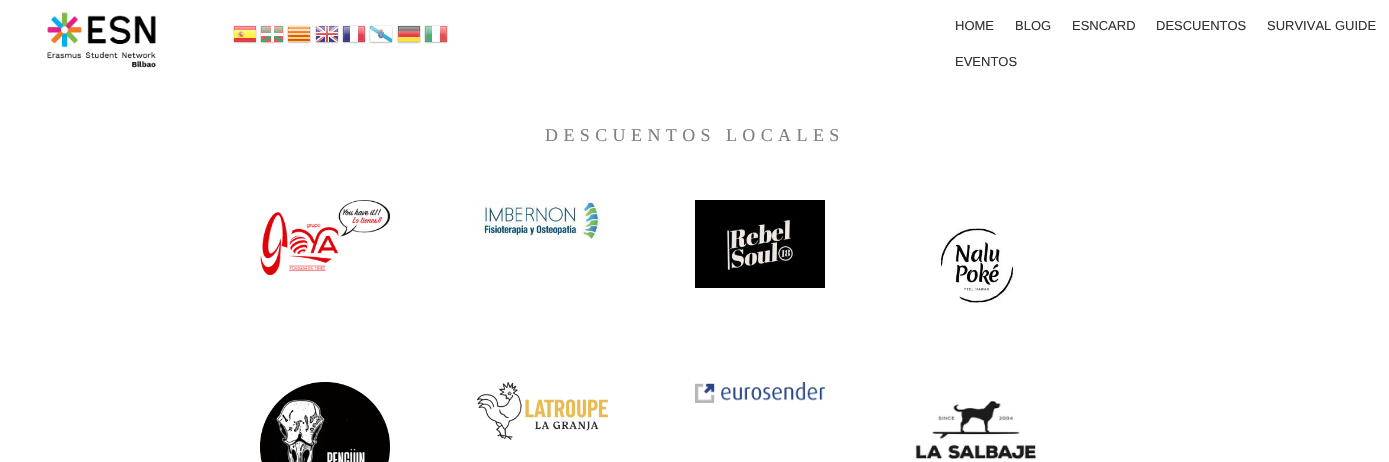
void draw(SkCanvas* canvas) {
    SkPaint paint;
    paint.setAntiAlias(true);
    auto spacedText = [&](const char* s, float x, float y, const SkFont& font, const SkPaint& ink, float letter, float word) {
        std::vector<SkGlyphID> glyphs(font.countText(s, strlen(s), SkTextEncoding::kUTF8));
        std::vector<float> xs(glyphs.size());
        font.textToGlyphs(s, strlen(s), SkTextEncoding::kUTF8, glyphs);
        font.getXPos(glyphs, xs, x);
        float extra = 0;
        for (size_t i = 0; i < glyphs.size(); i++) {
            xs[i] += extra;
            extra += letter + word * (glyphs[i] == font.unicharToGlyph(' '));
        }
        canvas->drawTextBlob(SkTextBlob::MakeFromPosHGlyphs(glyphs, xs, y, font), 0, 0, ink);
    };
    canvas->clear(0xFFFFFFFF);
    canvas->drawImageRect(SkImages::DeferredFromEncodedData(SkData::MakeFromFileName("img1.png")), SkRect::MakeXYWH(47, 12, 109, 56), SkSamplingOptions());
    canvas->drawImageRect(SkImages::DeferredFromEncodedData(SkData::MakeFromFileName("img2.png")), SkRect::MakeXYWH(233, 25, 24, 19), SkSamplingOptions());
    canvas->drawImageRect(SkImages::DeferredFromEncodedData(SkData::MakeFromFileName("img3.png")), SkRect::MakeXYWH(260, 25, 24, 19), SkSamplingOptions());
    canvas->drawImageRect(SkImages::DeferredFromEncodedData(SkData::MakeFromFileName("img4.png")), SkRect::MakeXYWH(287, 25, 24, 19), SkSamplingOptions());
    canvas->drawImageRect(SkImages::DeferredFromEncodedData(SkData::MakeFromFileName("img5.png")), SkRect::MakeXYWH(315, 25, 24, 19), SkSamplingOptions());
    canvas->drawImageRect(SkImages::DeferredFromEncodedData(SkData::MakeFromFileName("img6.png")), SkRect::MakeXYWH(342, 25, 24, 19), SkSamplingOptions());
    canvas->drawImageRect(SkImages::DeferredFromEncodedData(SkData::MakeFromFileName("img7.png")), SkRect::MakeXYWH(369, 25, 24, 19), SkSamplingOptions());
    canvas->drawImageRect(SkImages::DeferredFromEncodedData(SkData::MakeFromFileName("img8.png")), SkRect::MakeXYWH(397, 25, 24, 19), SkSamplingOptions());
    canvas->drawImageRect(SkImages::DeferredFromEncodedData(SkData::MakeFromFileName("img9.png")), SkRect::MakeXYWH(424, 25, 24, 19), SkSamplingOptions());
    SkFont font1(fontMgr->matchFamilyStyle("Liberation Sans", SkFontStyle::Normal()), 13);
    font1.setSubpixel(true);
    paint.setColor(0xFF333333);
    canvas->drawString("HOME", 955, 30, font1, paint);
    canvas->drawString("BLOG", 1015, 30, font1, paint);
    canvas->drawString("ESNCARD", 1072, 30, font1, paint);
    canvas->drawString("DESCUENTOS", 1156, 30, font1, paint);
    canvas->drawString("SURVIVAL GUIDE", 1267, 30, font1, paint);
    canvas->drawString("EVENTOS", 955, 66, font1, paint);
    SkFont font2(fontMgr->matchFamilyStyle("Liberation Serif", SkFontStyle::Normal()), 18);
    font2.setSubpixel(true);
    paint.setColor(0xFF808080);
    spacedText("DESCUENTOS LOCALES", 545, 141, font2, paint, 5.4f, 0);
    canvas->drawImageRect(SkImages::DeferredFromEncodedData(SkData::MakeFromFileName("img10.png")), SkRect::MakeXYWH(260, 200, 130, 75), SkSamplingOptions());
    canvas->drawImageRect(SkImages::DeferredFromEncodedData(SkData::MakeFromFileName("img11.png")), SkRect::MakeXYWH(477, 200, 124, 40), SkSamplingOptions());
    canvas->drawImageRect(SkImages::DeferredFromEncodedData(SkData::MakeFromFileName("img12.png")), SkRect::MakeXYWH(695, 200, 130, 88), SkSamplingOptions());
    canvas->drawImageRect(SkImages::DeferredFromEncodedData(SkData::MakeFromFileName("img13.png")), SkRect::MakeXYWH(940, 228, 76, 77), SkSamplingOptions());
    canvas->drawImageRect(SkImages::DeferredFromEncodedData(SkData::MakeFromFileName("img14.png")), SkRect::MakeXYWH(260, 382, 130, 80), SkSamplingOptions());
    canvas->drawImageRect(SkImages::DeferredFromEncodedData(SkData::MakeFromFileName("img15.png")), SkRect::MakeXYWH(477, 382, 131, 58), SkSamplingOptions());
    canvas->drawImageRect(SkImages::DeferredFromEncodedData(SkData::MakeFromFileName("img16.png")), SkRect::MakeXYWH(695, 382, 130, 21), SkSamplingOptions());
    canvas->drawImageRect(SkImages::DeferredFromEncodedData(SkData::MakeFromFileName("img17.png")), SkRect::MakeXYWH(915, 401, 121, 59), SkSamplingOptions());
}
